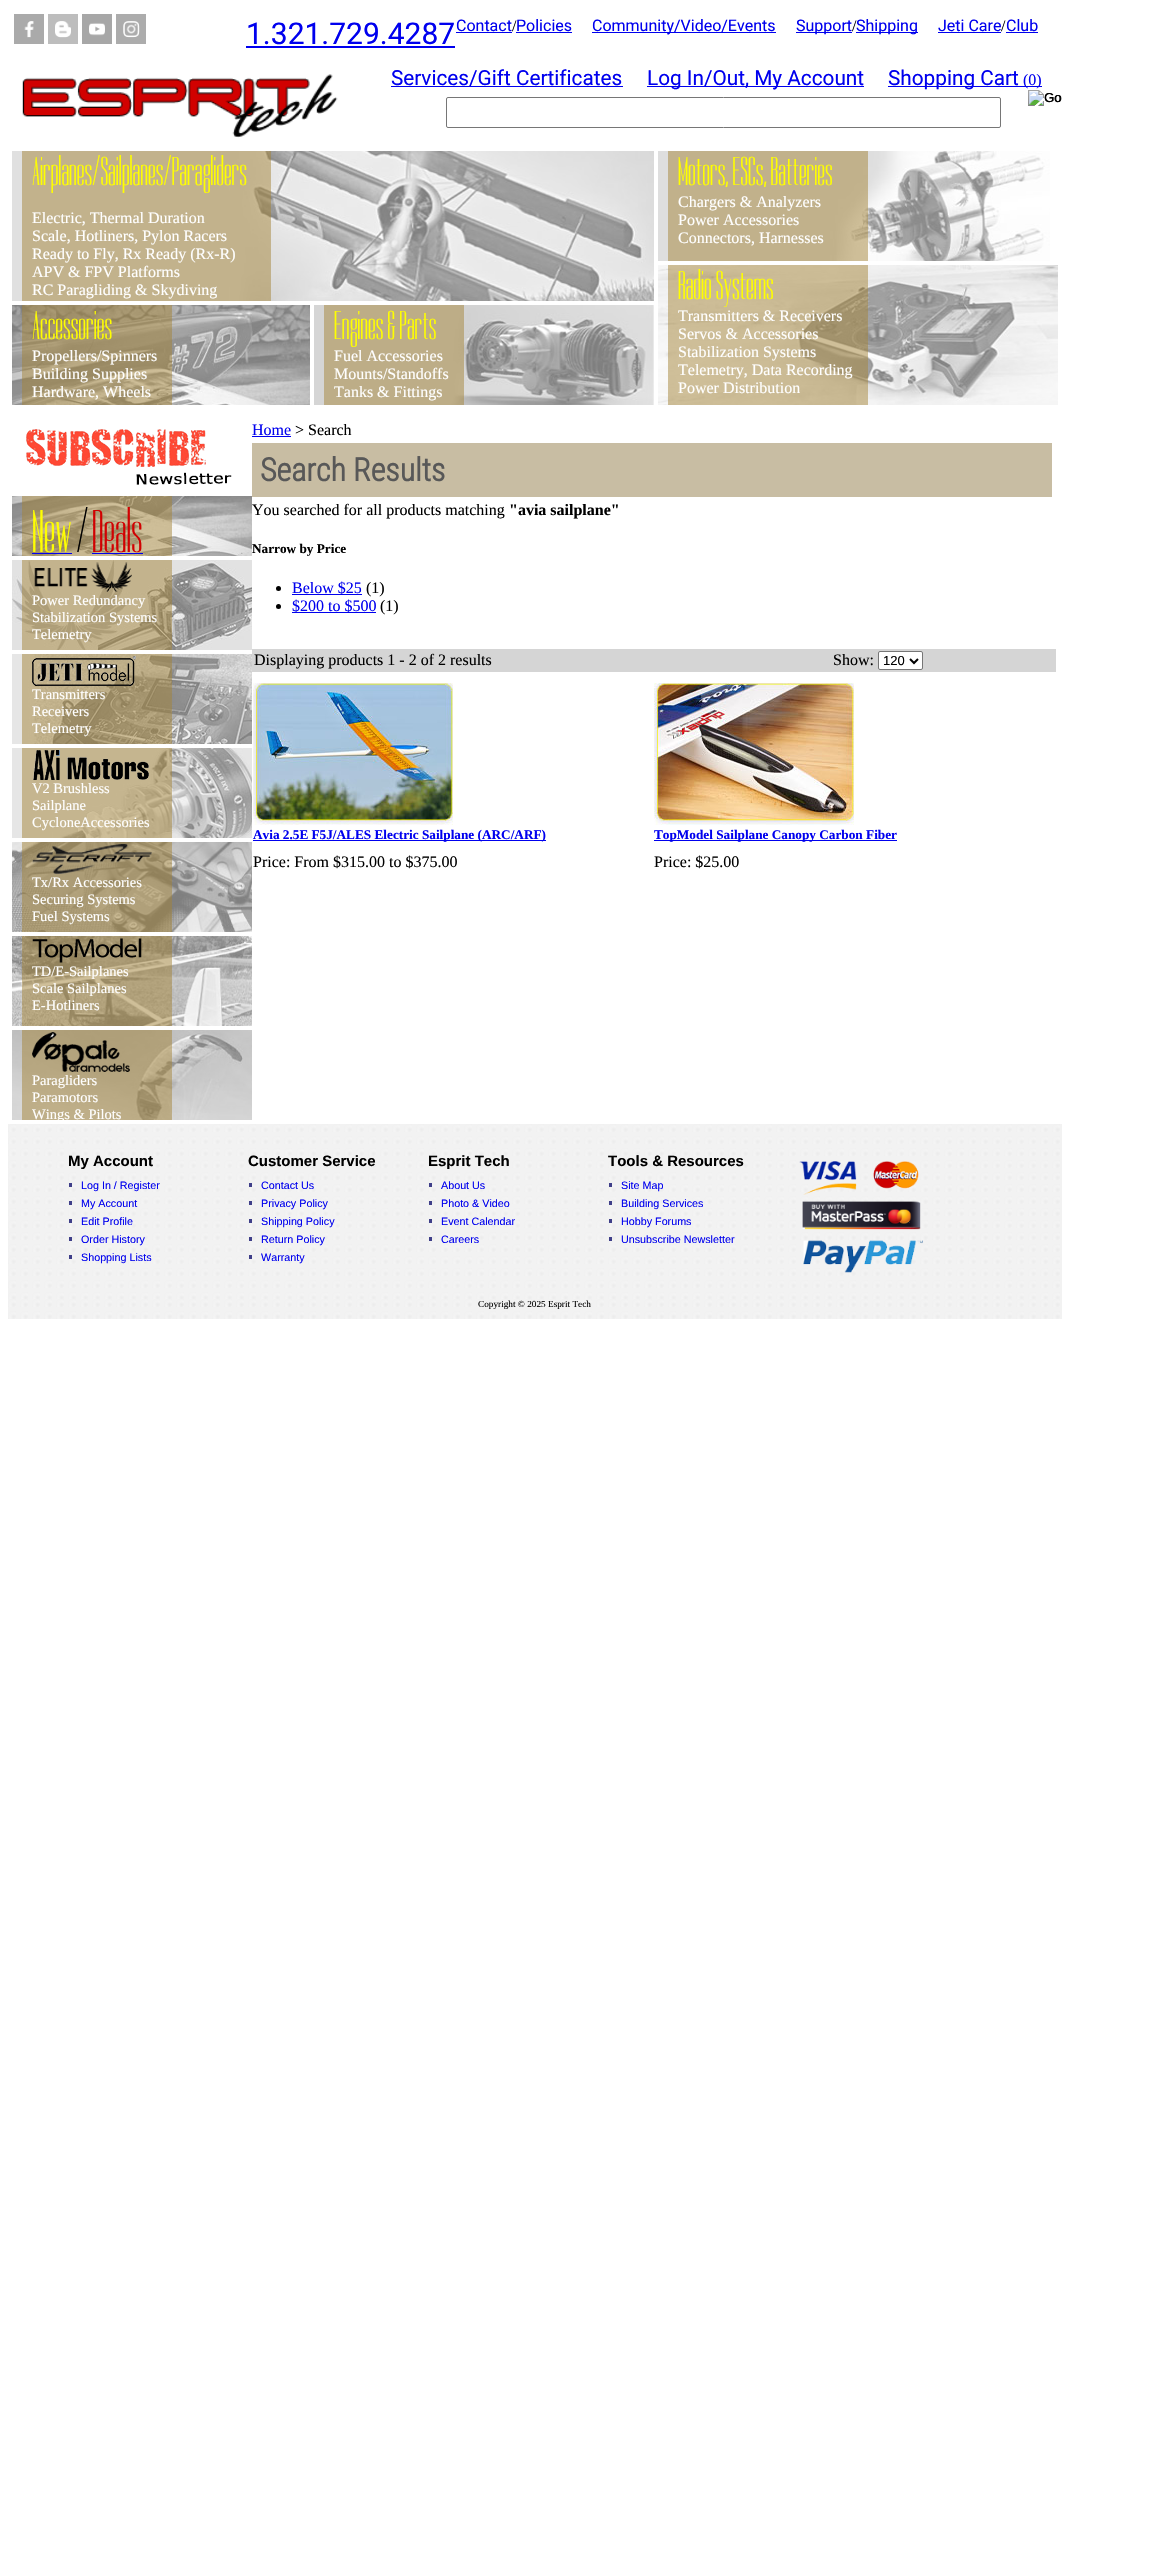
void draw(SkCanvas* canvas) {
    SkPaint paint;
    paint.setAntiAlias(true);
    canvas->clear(0xFFFFFFFF);
    canvas->drawImageRect(SkImages::DeferredFromEncodedData(SkData::MakeFromFileName("img1.png")), SkRect::MakeXYWH(14, 14, 30, 30), SkSamplingOptions());
    canvas->drawImageRect(SkImages::DeferredFromEncodedData(SkData::MakeFromFileName("img2.png")), SkRect::MakeXYWH(48, 14, 30, 30), SkSamplingOptions());
    canvas->drawImageRect(SkImages::DeferredFromEncodedData(SkData::MakeFromFileName("img3.png")), SkRect::MakeXYWH(82, 14, 30, 30), SkSamplingOptions());
    canvas->drawImageRect(SkImages::DeferredFromEncodedData(SkData::MakeFromFileName("img4.png")), SkRect::MakeXYWH(116, 14, 30, 30), SkSamplingOptions());
    SkFont font1(fontMgr->matchFamilyStyle("Roboto", SkFontStyle::Normal()), 30);
    font1.setSubpixel(true);
    paint.setColor(0xFF0000EE);
    canvas->drawString("1.321.729.4287", 246, 44, font1, paint);
    canvas->drawRect(SkRect::MakeXYWH(246, 46, 209, 2), paint);
    SkFont font2(fontMgr->matchFamilyStyle("Roboto", SkFontStyle::Normal()), 16);
    font2.setSubpixel(true);
    canvas->drawString("Contact", 456, 31, font2, paint);
    canvas->drawRect(SkRect::MakeXYWH(456, 32, 56, 1), paint);
    SkFont font3(fontMgr->matchFamilyStyle("Liberation Serif", SkFontStyle::Normal()), 16);
    font3.setSubpixel(true);
    paint.setColor(0xFF000000);
    canvas->drawString("/", 512, 31, font3, paint);
    paint.setColor(0xFF0000EE);
    canvas->drawString("Policies", 516, 31, font2, paint);
    canvas->drawRect(SkRect::MakeXYWH(516, 32, 56, 1), paint);
    canvas->drawRect(SkRect::MakeXYWH(592, 32, 184, 1), paint);
    canvas->drawString("Community/Video/Events", 592, 31, font2, paint);
    canvas->drawRect(SkRect::MakeXYWH(796, 32, 56, 1), paint);
    canvas->drawString("Support", 796, 31, font2, paint);
    paint.setColor(0xFF000000);
    canvas->drawString("/", 852, 31, font3, paint);
    paint.setColor(0xFF0000EE);
    canvas->drawRect(SkRect::MakeXYWH(856, 32, 62, 1), paint);
    canvas->drawString("Shipping", 856, 31, font2, paint);
    canvas->drawString("Jeti Care", 938, 31, font2, paint);
    canvas->drawRect(SkRect::MakeXYWH(938, 32, 63, 1), paint);
    paint.setColor(0xFF000000);
    canvas->drawString("/", 1001, 31, font3, paint);
    paint.setColor(0xFF0000EE);
    canvas->drawString("Club", 1006, 31, font2, paint);
    canvas->drawRect(SkRect::MakeXYWH(1006, 32, 32, 1), paint);
    canvas->drawImageRect(SkImages::DeferredFromEncodedData(SkData::MakeFromFileName("img5.png")), SkRect::MakeXYWH(22, 74, 316, 64), SkSamplingOptions());
    canvas->drawRect(SkRect::MakeXYWH(391, 86, 232, 1), paint);
    SkFont font4(fontMgr->matchFamilyStyle("Roboto", SkFontStyle::Normal()), 20.75f);
    font4.setSubpixel(true);
    canvas->drawString("Services/Gift Certificates", 391, 85, font4, paint);
    canvas->drawRect(SkRect::MakeXYWH(647, 86, 217, 1), paint);
    canvas->drawString("Log In/Out, My Account", 647, 85, font4, paint);
    canvas->drawRect(SkRect::MakeXYWH(888, 86, 154, 1), paint);
    canvas->drawString("Shopping Cart", 888, 85, font4, paint);
    canvas->drawString("(0)", 1023, 85, font3, paint);
    paint.setStyle(SkPaint::kStroke_Style);
    paint.setStrokeWidth(1);
    paint.setColor(0xFF767676);
    canvas->drawRoundRect(SkRect::MakeXYWH(446.5f, 97.5f, 554, 30), 1.5f, 1.5f, paint);
    canvas->drawImageRect(SkImages::DeferredFromEncodedData(SkData::MakeFromFileName("img6.png")), SkRect::MakeXYWH(1028, 90, 34, 16), SkSamplingOptions());
    SkFont font5(fontMgr->matchFamilyStyle("Liberation Sans", SkFontStyle::Normal()), 13);
    font5.setSubpixel(true);
    paint.setStyle(SkPaint::kFill_Style);
    paint.setColor(0xFF000000);
    canvas->drawString("Go", 1044, 102, font5, paint);
    canvas->drawImageRect(SkImages::DeferredFromEncodedData(SkData::MakeFromFileName("img7.png")), SkRect::MakeXYWH(12, 151, 642, 150), SkSamplingOptions());
    paint.setColor(0x7DA38335);
    canvas->drawRect(SkRect::MakeXYWH(22, 151, 249, 150), paint);
    SkFont font6(fontMgr->matchFamilyStyle("Dorsa", SkFontStyle::Normal()), 40);
    font6.setSubpixel(true);
    paint.setColor(0xFFFFFF00);
    canvas->drawString("Airplanes/Sailplanes/Paragliders", 32, 185, font6, paint);
    paint.setColor(0xFFFFFFFF);
    canvas->drawString("Electric, Thermal Duration", 32, 223, font3, paint);
    canvas->drawString("Scale, Hotliners, Pylon Racers", 32, 241, font3, paint);
    canvas->drawString("Ready to Fly, Rx Ready (Rx-R)", 32, 259, font3, paint);
    canvas->drawString("APV & FPV Platforms", 32, 277, font3, paint);
    canvas->drawString("RC Paragliding & Skydiving", 32, 295, font3, paint);
    canvas->drawImageRect(SkImages::DeferredFromEncodedData(SkData::MakeFromFileName("img8.png")), SkRect::MakeXYWH(12, 305, 298, 100), SkSamplingOptions());
    paint.setColor(0x7DA38335);
    canvas->drawRect(SkRect::MakeXYWH(22, 305, 150, 100), paint);
    paint.setColor(0xFFFFFF00);
    canvas->drawString("Accessories", 32, 339, font6, paint);
    paint.setColor(0xFFFFFFFF);
    canvas->drawString("Propellers/Spinners", 32, 361, font3, paint);
    canvas->drawString("Building Supplies", 32, 379, font3, paint);
    canvas->drawString("Hardware, Wheels", 32, 397, font3, paint);
    canvas->drawImageRect(SkImages::DeferredFromEncodedData(SkData::MakeFromFileName("img9.png")), SkRect::MakeXYWH(314, 305, 340, 100), SkSamplingOptions());
    paint.setColor(0x7DA38335);
    canvas->drawRect(SkRect::MakeXYWH(324, 305, 140, 100), paint);
    paint.setColor(0xFFFFFF00);
    canvas->drawString("Engines & Parts", 334, 339, font6, paint);
    paint.setColor(0xFFFFFFFF);
    canvas->drawString("Fuel Accessories", 334, 361, font3, paint);
    canvas->drawString("Mounts/Standoffs", 334, 379, font3, paint);
    canvas->drawString("Tanks & Fittings", 334, 397, font3, paint);
    canvas->drawImageRect(SkImages::DeferredFromEncodedData(SkData::MakeFromFileName("img10.png")), SkRect::MakeXYWH(658, 151, 392, 110), SkSamplingOptions());
    paint.setColor(0x7DA38335);
    canvas->drawRect(SkRect::MakeXYWH(668, 151, 200, 110), paint);
    paint.setColor(0xFFFFFF00);
    canvas->drawString("Motors, ESCs, Batteries", 678, 185, font6, paint);
    paint.setColor(0xFFFFFFFF);
    canvas->drawString("Chargers & Analyzers", 678, 207, font3, paint);
    canvas->drawString("Power Accessories", 678, 225, font3, paint);
    canvas->drawString("Connectors, Harnesses", 678, 243, font3, paint);
    canvas->drawImageRect(SkImages::DeferredFromEncodedData(SkData::MakeFromFileName("img11.png")), SkRect::MakeXYWH(658, 265, 400, 140), SkSamplingOptions());
    paint.setColor(0x7DA38335);
    canvas->drawRect(SkRect::MakeXYWH(668, 265, 200, 140), paint);
    paint.setColor(0xFFFFFF00);
    canvas->drawString("Radio Systems", 678, 299, font6, paint);
    paint.setColor(0xFFFFFFFF);
    canvas->drawString("Transmitters & Receivers", 678, 321, font3, paint);
    canvas->drawString("Servos & Accessories", 678, 339, font3, paint);
    canvas->drawString("Stabilization Systems", 678, 357, font3, paint);
    canvas->drawString("Telemetry, Data Recording", 678, 375, font3, paint);
    canvas->drawString("Power Distribution", 678, 393, font3, paint);
    canvas->drawImageRect(SkImages::DeferredFromEncodedData(SkData::MakeFromFileName("img12.png")), SkRect::MakeXYWH(26, 429, 206, 56), SkSamplingOptions());
    canvas->drawImageRect(SkImages::DeferredFromEncodedData(SkData::MakeFromFileName("img13.png")), SkRect::MakeXYWH(12, 496, 240, 60), SkSamplingOptions());
    paint.setColor(0x7DA38335);
    canvas->drawRect(SkRect::MakeXYWH(22, 496, 150, 60), paint);
    SkFont font7(fontMgr->matchFamilyStyle("Dorsa", SkFontStyle::Normal()), 60);
    font7.setSubpixel(true);
    paint.setColor(0xFFFFFF00);
    canvas->drawString("New", 32, 552, font7, paint);
    paint.setColor(0xFF0000EE);
    canvas->drawRect(SkRect::MakeXYWH(32, 553, 40, 1), paint);
    paint.setColor(0xFF000000);
    canvas->drawString("/", 76, 552, font7, paint);
    paint.setColor(0xFFD10101);
    canvas->drawString("Deals", 92, 552, font7, paint);
    paint.setColor(0xFF0000EE);
    canvas->drawRect(SkRect::MakeXYWH(92, 553, 51, 1), paint);
    canvas->drawImageRect(SkImages::DeferredFromEncodedData(SkData::MakeFromFileName("img14.png")), SkRect::MakeXYWH(12, 560, 240, 90), SkSamplingOptions());
    paint.setColor(0x7DA38335);
    canvas->drawRect(SkRect::MakeXYWH(22, 560, 150, 90), paint);
    canvas->drawImageRect(SkImages::DeferredFromEncodedData(SkData::MakeFromFileName("img15.png")), SkRect::MakeXYWH(34, 562, 98, 30), SkSamplingOptions());
    SkFont font8(fontMgr->matchFamilyStyle("Liberation Serif", SkFontStyle::Normal()), 14.5f);
    font8.setSubpixel(true);
    paint.setColor(0xFFFFFFFF);
    canvas->drawString("Power Redundancy", 32, 605, font8, paint);
    canvas->drawString("Stabilization Systems", 32, 622, font8, paint);
    canvas->drawString("Telemetry", 32, 639, font8, paint);
    canvas->drawImageRect(SkImages::DeferredFromEncodedData(SkData::MakeFromFileName("img16.png")), SkRect::MakeXYWH(12, 654, 240, 90), SkSamplingOptions());
    paint.setColor(0x7DA38335);
    canvas->drawRect(SkRect::MakeXYWH(22, 654, 150, 90), paint);
    canvas->drawImageRect(SkImages::DeferredFromEncodedData(SkData::MakeFromFileName("img17.png")), SkRect::MakeXYWH(32, 656, 104, 30), SkSamplingOptions());
    paint.setColor(0xFFFFFFFF);
    canvas->drawString("Transmitters", 32, 699, font8, paint);
    canvas->drawString("Receivers", 32, 716, font8, paint);
    canvas->drawString("Telemetry", 32, 733, font8, paint);
    canvas->drawImageRect(SkImages::DeferredFromEncodedData(SkData::MakeFromFileName("img18.png")), SkRect::MakeXYWH(12, 748, 240, 90), SkSamplingOptions());
    paint.setColor(0x7DA38335);
    canvas->drawRect(SkRect::MakeXYWH(22, 748, 150, 90), paint);
    canvas->drawImageRect(SkImages::DeferredFromEncodedData(SkData::MakeFromFileName("img19.png")), SkRect::MakeXYWH(33, 750, 116, 30), SkSamplingOptions());
    paint.setColor(0xFFFFFFFF);
    canvas->drawString("V2 Brushless", 32, 793, font8, paint);
    canvas->drawString("Sailplane", 32, 810, font8, paint);
    canvas->drawString("CycloneAccessories", 32, 827, font8, paint);
    canvas->drawImageRect(SkImages::DeferredFromEncodedData(SkData::MakeFromFileName("img20.png")), SkRect::MakeXYWH(12, 842, 240, 90), SkSamplingOptions());
    paint.setColor(0x7DA38335);
    canvas->drawRect(SkRect::MakeXYWH(22, 842, 150, 90), paint);
    canvas->drawImageRect(SkImages::DeferredFromEncodedData(SkData::MakeFromFileName("img21.png")), SkRect::MakeXYWH(32, 844, 120, 30), SkSamplingOptions());
    paint.setColor(0xFFFFFFFF);
    canvas->drawString("Tx/Rx Accessories", 32, 887, font8, paint);
    canvas->drawString("Securing Systems", 32, 904, font8, paint);
    canvas->drawString("Fuel Systems", 32, 921, font8, paint);
    canvas->drawImageRect(SkImages::DeferredFromEncodedData(SkData::MakeFromFileName("img22.png")), SkRect::MakeXYWH(12, 936, 240, 90), SkSamplingOptions());
    paint.setColor(0x7DA38335);
    canvas->drawRect(SkRect::MakeXYWH(22, 936, 150, 90), paint);
    canvas->drawImageRect(SkImages::DeferredFromEncodedData(SkData::MakeFromFileName("img23.png")), SkRect::MakeXYWH(32, 938, 110, 25), SkSamplingOptions());
    paint.setColor(0xFFFFFFFF);
    canvas->drawString("TD/E-Sailplanes", 32, 976, font8, paint);
    canvas->drawString("Scale Sailplanes", 32, 993, font8, paint);
    canvas->drawString("E-Hotliners", 32, 1010, font8, paint);
    canvas->drawImageRect(SkImages::DeferredFromEncodedData(SkData::MakeFromFileName("img24.png")), SkRect::MakeXYWH(12, 1030, 240, 90), SkSamplingOptions());
    paint.setColor(0x7DA38335);
    canvas->drawRect(SkRect::MakeXYWH(22, 1030, 150, 90), paint);
    canvas->drawImageRect(SkImages::DeferredFromEncodedData(SkData::MakeFromFileName("img25.png")), SkRect::MakeXYWH(32, 1032, 98, 40), SkSamplingOptions());
    paint.setColor(0xFFFFFFFF);
    canvas->drawString("Paragliders", 32, 1085, font8, paint);
    canvas->drawString("Paramotors", 32, 1102, font8, paint);
    canvas->drawString("Wings & Pilots", 32, 1119, font8, paint);
    paint.setColor(0xFF0000EE);
    canvas->drawString("Home", 252, 435, font3, paint);
    canvas->drawRect(SkRect::MakeXYWH(252, 436, 39, 1), paint);
    paint.setColor(0xFF000000);
    canvas->drawString("> Search", 295, 435, font3, paint);
    paint.setColor(0xFFC8BDA3);
    canvas->drawRect(SkRect::MakeXYWH(252, 443, 800, 54), paint);
    SkFont font9(fontMgr->matchFamilyStyle("Roboto Condensed", SkFontStyle::Bold()), 32);
    font9.setSubpixel(true);
    paint.setColor(0xFF585858);
    canvas->drawString("Search Results", 260, 481, font9, paint);
    paint.setColor(0xFF000000);
    canvas->drawString("You searched for all products matching", 252, 515, font3, paint);
    SkFont font10(fontMgr->matchFamilyStyle("Liberation Serif", SkFontStyle::Bold()), 16);
    font10.setSubpixel(true);
    canvas->drawString("\"avia sailplane\"", 509, 515, font10, paint);
    SkFont font11(fontMgr->matchFamilyStyle("Liberation Serif", SkFontStyle::Bold()), 13.25f);
    font11.setSubpixel(true);
    canvas->drawString("Narrow by Price", 252, 553, font11, paint);
    canvas->drawCircle(278.5f, 588.5f, 2.5f, paint);
    paint.setColor(0xFF0000EE);
    canvas->drawRect(SkRect::MakeXYWH(292, 594, 70, 1), paint);
    canvas->drawString("Below $25", 292, 593, font3, paint);
    paint.setColor(0xFF000000);
    canvas->drawString("(1)", 366, 593, font3, paint);
    canvas->drawCircle(278.5f, 606.5f, 2.5f, paint);
    paint.setColor(0xFF0000EE);
    canvas->drawRect(SkRect::MakeXYWH(292, 612, 84, 1), paint);
    canvas->drawString("$200 to $500", 292, 611, font3, paint);
    paint.setColor(0xFF000000);
    canvas->drawString("(1)", 380, 611, font3, paint);
    paint.setColor(0xFFD5D5D5);
    canvas->drawRect(SkRect::MakeXYWH(252, 649, 804, 23), paint);
    paint.setColor(0xFF000000);
    canvas->drawString("Displaying products 1 - 2 of 2 results", 254, 665, font3, paint);
    canvas->drawString("Show:", 833, 665, font3, paint);
    paint.setColor(0xFFFFFFFF);
    canvas->drawRoundRect(SkRect::MakeXYWH(878.5f, 651.5f, 44, 18), 1.5f, 1.5f, paint);
    paint.setStyle(SkPaint::kStroke_Style);
    paint.setColor(0xFF767676);
    canvas->drawRoundRect(SkRect::MakeXYWH(878.5f, 651.5f, 44, 18), 1.5f, 1.5f, paint);
    paint.setStrokeWidth(2);
    paint.setColor(0xFF000000);
    canvas->drawPath(SkPathBuilder().moveTo(910, 659).lineTo(914, 663).lineTo(918, 659).detach(), paint);
    paint.setStyle(SkPaint::kFill_Style);
    canvas->drawString("120", 883, 665, font5, paint);
    canvas->drawImageRect(SkImages::DeferredFromEncodedData(SkData::MakeFromFileName("img26.png")), SkRect::MakeXYWH(253, 683, 200, 142), SkSamplingOptions());
    paint.setColor(0xFF0000EE);
    canvas->drawRect(SkRect::MakeXYWH(253, 840, 293, 1), paint);
    canvas->drawString("Avia 2.5E F5J/ALES Electric Sailplane (ARC/ARF)", 253, 839, font11, paint);
    paint.setColor(0xFF000000);
    canvas->drawString("Price: From $315.00 to $375.00", 253, 867, font3, paint);
    canvas->drawImageRect(SkImages::DeferredFromEncodedData(SkData::MakeFromFileName("img27.png")), SkRect::MakeXYWH(654, 683, 200, 142), SkSamplingOptions());
    paint.setColor(0xFF0000EE);
    canvas->drawRect(SkRect::MakeXYWH(654, 840, 243, 1), paint);
    canvas->drawString("TopModel Sailplane Canopy Carbon Fiber", 654, 839, font11, paint);
    paint.setColor(0xFF000000);
    canvas->drawString("Price: $25.00", 654, 867, font3, paint);
    canvas->drawImageRect(SkImages::DeferredFromEncodedData(SkData::MakeFromFileName("img28.png")), SkRect::MakeXYWH(8, 1124, 1054, 175), SkSamplingOptions());
    SkFont font12(fontMgr->matchFamilyStyle("Liberation Sans", SkFontStyle::Bold()), 15);
    font12.setSubpixel(true);
    canvas->drawString("My Account", 68, 1166, font12, paint);
    SkFont font13(fontMgr->matchFamilyStyle("Liberation Sans", SkFontStyle::Normal()), 10.75f);
    font13.setSubpixel(true);
    paint.setColor(0xFF0000EE);
    canvas->drawString("Log In / Register", 81, 1189, font13, paint);
    paint.setColor(0xFF3F3F89);
    canvas->drawRect(SkRect::MakeXYWH(69, 1183, 3, 4), paint);
    paint.setColor(0xFF0000EE);
    canvas->drawString("My Account", 81, 1207, font13, paint);
    paint.setColor(0xFF3F3F89);
    canvas->drawRect(SkRect::MakeXYWH(69, 1201, 3, 4), paint);
    paint.setColor(0xFF0000EE);
    canvas->drawString("Edit Profile", 81, 1225, font13, paint);
    paint.setColor(0xFF3F3F89);
    canvas->drawRect(SkRect::MakeXYWH(69, 1219, 3, 4), paint);
    paint.setColor(0xFF0000EE);
    canvas->drawString("Order History", 81, 1243, font13, paint);
    paint.setColor(0xFF3F3F89);
    canvas->drawRect(SkRect::MakeXYWH(69, 1237, 3, 4), paint);
    paint.setColor(0xFF0000EE);
    canvas->drawString("Shopping Lists", 81, 1261, font13, paint);
    paint.setColor(0xFF3F3F89);
    canvas->drawRect(SkRect::MakeXYWH(69, 1255, 3, 4), paint);
    paint.setColor(0xFF000000);
    canvas->drawString("Customer Service", 248, 1166, font12, paint);
    paint.setColor(0xFF0000EE);
    canvas->drawString("Contact Us", 261, 1189, font13, paint);
    paint.setColor(0xFF3F3F89);
    canvas->drawRect(SkRect::MakeXYWH(249, 1183, 3, 4), paint);
    paint.setColor(0xFF0000EE);
    canvas->drawString("Privacy Policy", 261, 1207, font13, paint);
    paint.setColor(0xFF3F3F89);
    canvas->drawRect(SkRect::MakeXYWH(249, 1201, 3, 4), paint);
    paint.setColor(0xFF0000EE);
    canvas->drawString("Shipping Policy", 261, 1225, font13, paint);
    paint.setColor(0xFF3F3F89);
    canvas->drawRect(SkRect::MakeXYWH(249, 1219, 3, 4), paint);
    paint.setColor(0xFF0000EE);
    canvas->drawString("Return Policy", 261, 1243, font13, paint);
    paint.setColor(0xFF3F3F89);
    canvas->drawRect(SkRect::MakeXYWH(249, 1237, 3, 4), paint);
    paint.setColor(0xFF0000EE);
    canvas->drawString("Warranty", 261, 1261, font13, paint);
    paint.setColor(0xFF3F3F89);
    canvas->drawRect(SkRect::MakeXYWH(249, 1255, 3, 4), paint);
    paint.setColor(0xFF000000);
    canvas->drawString("Esprit Tech", 428, 1166, font12, paint);
    paint.setColor(0xFF0000EE);
    canvas->drawString("About Us", 441, 1189, font13, paint);
    paint.setColor(0xFF3F3F89);
    canvas->drawRect(SkRect::MakeXYWH(429, 1183, 3, 4), paint);
    paint.setColor(0xFF0000EE);
    canvas->drawString("Photo & Video", 441, 1207, font13, paint);
    paint.setColor(0xFF3F3F89);
    canvas->drawRect(SkRect::MakeXYWH(429, 1201, 3, 4), paint);
    paint.setColor(0xFF0000EE);
    canvas->drawString("Event Calendar", 441, 1225, font13, paint);
    paint.setColor(0xFF3F3F89);
    canvas->drawRect(SkRect::MakeXYWH(429, 1219, 3, 4), paint);
    paint.setColor(0xFF0000EE);
    canvas->drawString("Careers", 441, 1243, font13, paint);
    paint.setColor(0xFF3F3F89);
    canvas->drawRect(SkRect::MakeXYWH(429, 1237, 3, 4), paint);
    paint.setColor(0xFF000000);
    canvas->drawString("Tools & Resources", 608, 1166, font12, paint);
    paint.setColor(0xFF0000EE);
    canvas->drawString("Site Map", 621, 1189, font13, paint);
    paint.setColor(0xFF3F3F89);
    canvas->drawRect(SkRect::MakeXYWH(609, 1183, 3, 4), paint);
    paint.setColor(0xFF0000EE);
    canvas->drawString("Building Services", 621, 1207, font13, paint);
    paint.setColor(0xFF3F3F89);
    canvas->drawRect(SkRect::MakeXYWH(609, 1201, 3, 4), paint);
    paint.setColor(0xFF0000EE);
    canvas->drawString("Hobby Forums", 621, 1225, font13, paint);
    paint.setColor(0xFF3F3F89);
    canvas->drawRect(SkRect::MakeXYWH(609, 1219, 3, 4), paint);
    paint.setColor(0xFF0000EE);
    canvas->drawString("Unsubscribe Newsletter", 621, 1243, font13, paint);
    paint.setColor(0xFF3F3F89);
    canvas->drawRect(SkRect::MakeXYWH(609, 1237, 3, 4), paint);
    canvas->drawImageRect(SkImages::DeferredFromEncodedData(SkData::MakeFromFileName("img29.png")), SkRect::MakeXYWH(799, 1161, 124, 112), SkSamplingOptions());
    canvas->drawImageRect(SkImages::DeferredFromEncodedData(SkData::MakeFromFileName("img30.png")), SkRect::MakeXYWH(8, 1299, 1054, 20), SkSamplingOptions());
    SkFont font14(fontMgr->matchFamilyStyle("Liberation Serif", SkFontStyle::Normal()), 9.25f);
    font14.setSubpixel(true);
    paint.setColor(0xFF000000);
    canvas->drawString("Copyright © 2025 Esprit Tech", 478, 1307, font14, paint);
}
